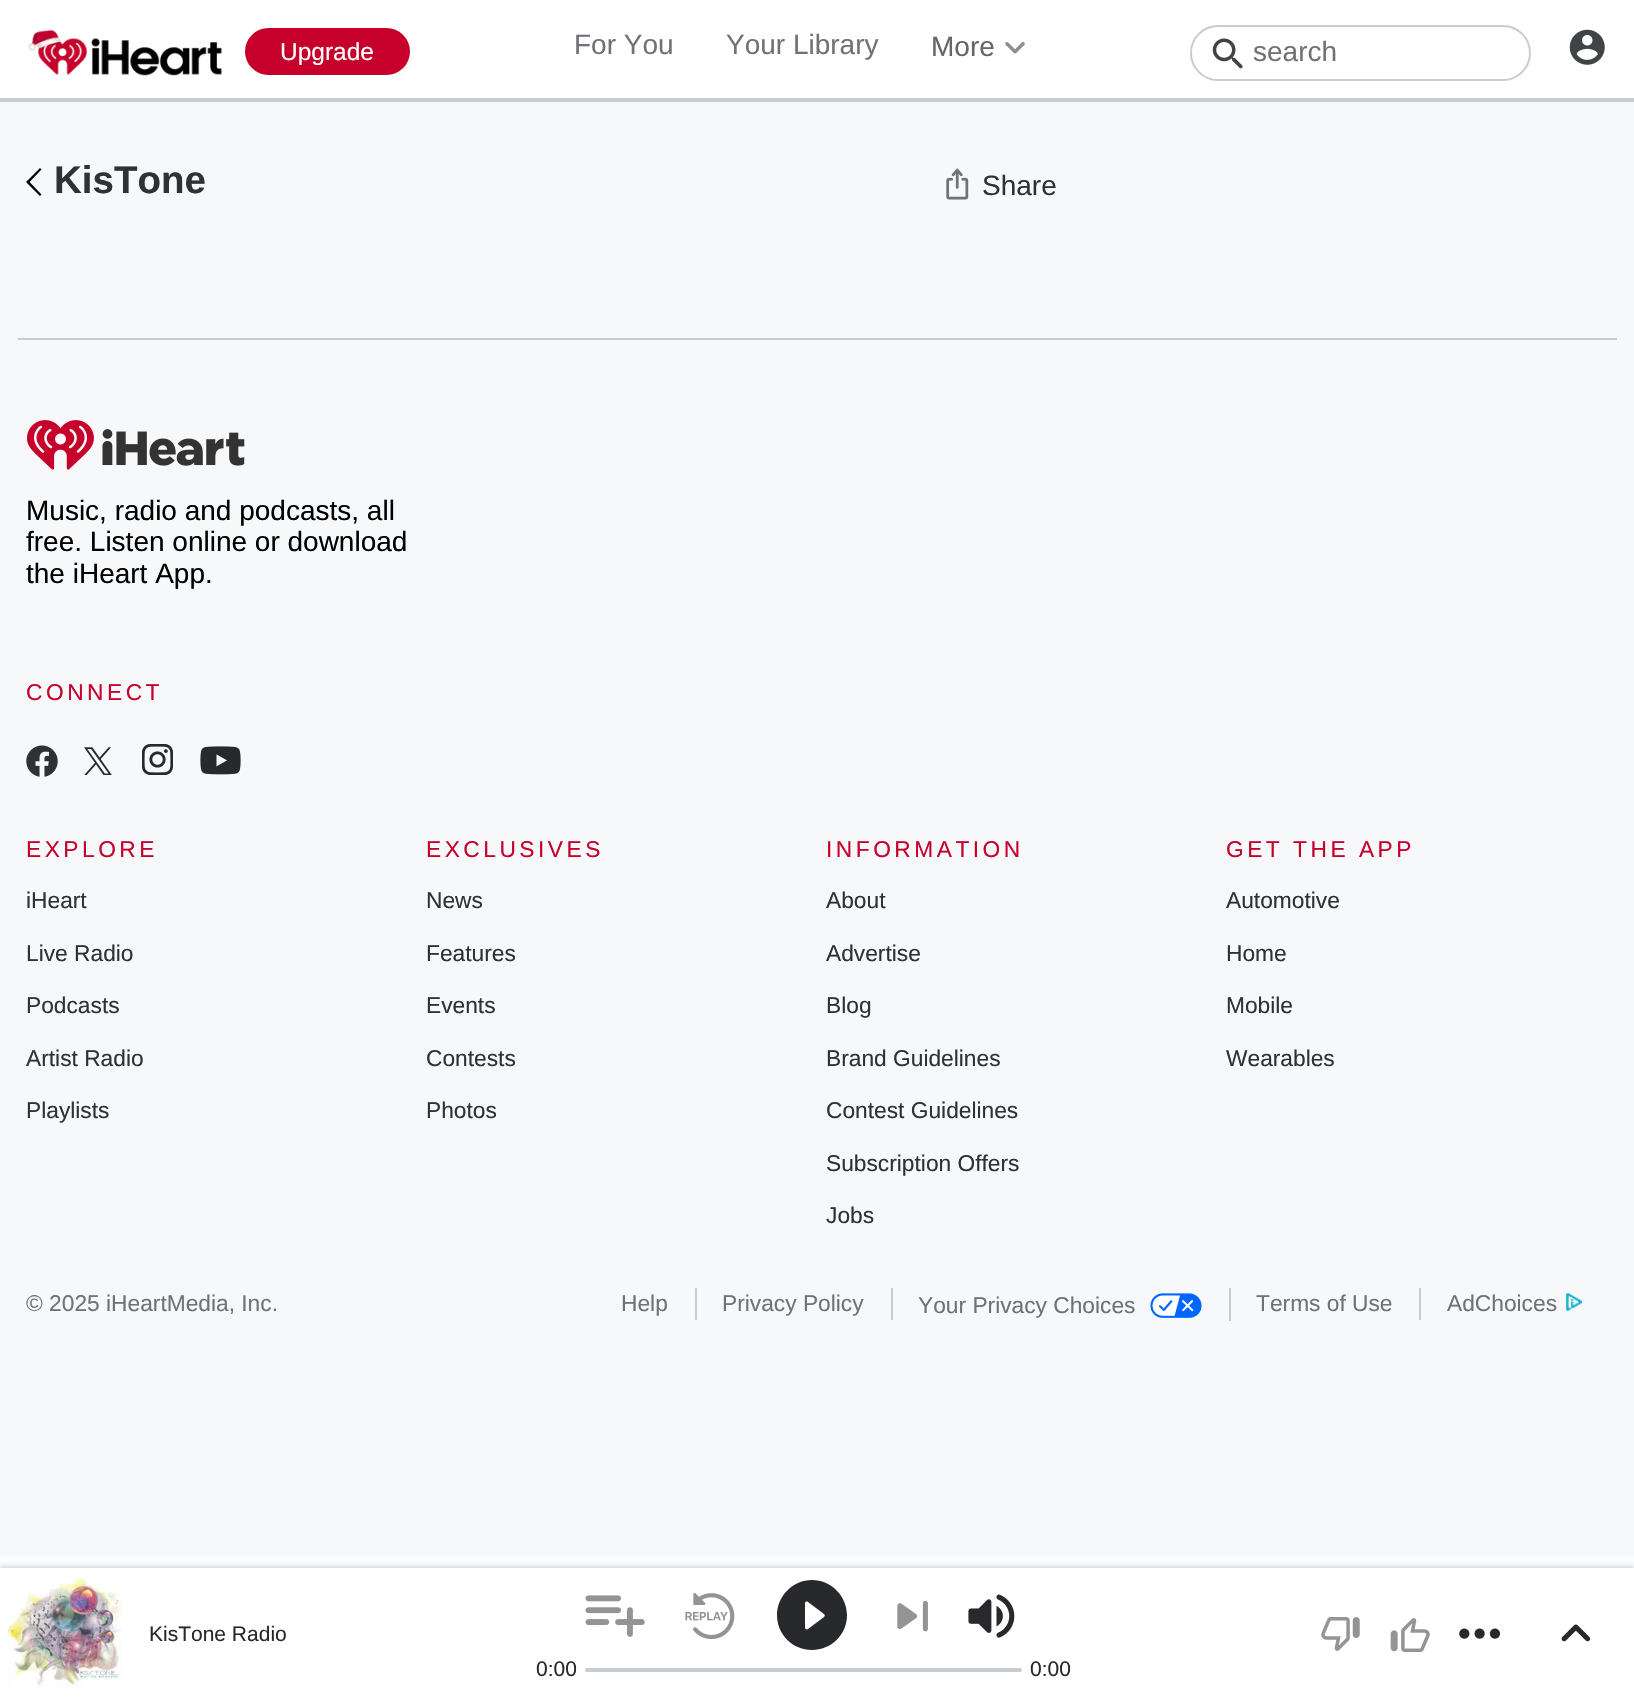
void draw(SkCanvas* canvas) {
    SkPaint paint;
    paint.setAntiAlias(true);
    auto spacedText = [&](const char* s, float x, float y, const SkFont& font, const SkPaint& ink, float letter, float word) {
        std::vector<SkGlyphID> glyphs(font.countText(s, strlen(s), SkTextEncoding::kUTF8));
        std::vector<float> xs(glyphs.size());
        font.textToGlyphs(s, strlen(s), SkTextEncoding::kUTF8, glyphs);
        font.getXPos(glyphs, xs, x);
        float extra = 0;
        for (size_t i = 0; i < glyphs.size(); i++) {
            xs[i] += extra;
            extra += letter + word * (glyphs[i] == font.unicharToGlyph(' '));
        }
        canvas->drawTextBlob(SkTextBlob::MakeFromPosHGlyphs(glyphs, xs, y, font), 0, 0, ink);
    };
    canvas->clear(0xFFFBFEFE);
    paint.setColor(0xFFFFFFFF);
    canvas->drawRect(SkRect::MakeXYWH(0, 0, 1634, 98), paint);
    paint.setColor(0xFFC5CDD2);
    canvas->drawRect(SkRect::MakeXYWH(0, 98, 1634, 4), paint);
    canvas->drawImageRect(SkImages::DeferredFromEncodedData(SkData::MakeFromFileName("img1.png")), SkRect::MakeXYWH(28, 29, 195, 47), SkSamplingOptions());
    paint.setColor(0xFFC6002B);
    canvas->drawRoundRect(SkRect::MakeXYWH(245, 28, 165, 47), 23.5f, 23.5f, paint);
    SkFont font1(fontMgr->matchFamilyStyle("Liberation Sans", SkFontStyle::Normal()), 24.5f);
    font1.setSubpixel(true);
    paint.setColor(0xFFFFFFFF);
    canvas->drawString("Upgrade", 280, 60, font1, paint);
    SkFont font2(fontMgr->matchFamilyStyle("Liberation Sans", SkFontStyle::Normal()), 28);
    font2.setSubpixel(true);
    paint.setColor(0xFF717277);
    canvas->drawString("For You", 574, 54, font2, paint);
    canvas->drawString("Your Library", 726, 54, font2, paint);
    paint.setColor(0xFF666666);
    canvas->drawString("More", 931, 56, font2, paint);
    canvas->drawImageRect(SkImages::DeferredFromEncodedData(SkData::MakeFromFileName("img2.png")), SkRect::MakeXYWH(1005, 42, 20, 12), SkSamplingOptions());
    paint.setStyle(SkPaint::kStroke_Style);
    paint.setStrokeWidth(2);
    paint.setColor(0xFFC5CDD2);
    canvas->drawRoundRect(SkRect::MakeXYWH(1191, 26, 339, 54), 27, 27, paint);
    canvas->drawImageRect(SkImages::DeferredFromEncodedData(SkData::MakeFromFileName("img3.png")), SkRect::MakeXYWH(1212, 38, 31, 31), SkSamplingOptions());
    paint.setStyle(SkPaint::kFill_Style);
    paint.setColor(0xFF717277);
    canvas->drawString("search", 1253, 61, font2, paint);
    canvas->drawImageRect(SkImages::DeferredFromEncodedData(SkData::MakeFromFileName("img4.png")), SkRect::MakeXYWH(1569, 29, 36, 36), SkSamplingOptions());
    paint.setColor(0xFFF6F8F9);
    canvas->drawRect(SkRect::MakeXYWH(0, 102, 1634, 1454), paint);
    paint.setColor(0xFF000000);
    canvas->drawPath(SkPathBuilder().moveTo(40, 168).lineTo(26, 182).lineTo(40, 196).lineTo(41.5f, 194.5f).lineTo(29.5f, 182).lineTo(41.5f, 169.5f).close().detach(), paint);
    SkFont font3(fontMgr->matchFamilyStyle("Liberation Sans", SkFontStyle::Bold()), 38.5f);
    font3.setSubpixel(true);
    paint.setColor(0xFF2F3133);
    canvas->drawString("KisTone", 54, 193, font3, paint);
    canvas->drawImageRect(SkImages::DeferredFromEncodedData(SkData::MakeFromFileName("img5.png")), SkRect::MakeXYWH(946, 168, 23, 32), SkSamplingOptions());
    canvas->drawString("Share", 982, 195, font2, paint);
    paint.setColor(0xFFC5CDD2);
    canvas->drawRect(SkRect::MakeXYWH(18, 338, 1599, 2), paint);
    canvas->drawImageRect(SkImages::DeferredFromEncodedData(SkData::MakeFromFileName("img6.png")), SkRect::MakeXYWH(27, 420, 218, 50), SkSamplingOptions());
    paint.setColor(0xFF000000);
    canvas->drawString("Music, radio and podcasts, all", 26, 520, font2, paint);
    canvas->drawString("free. Listen online or download", 26, 551, font2, paint);
    canvas->drawString("the iHeart App.", 26, 583, font2, paint);
    SkFont font4(fontMgr->matchFamilyStyle("Liberation Sans", SkFontStyle::Normal()), 22.75f);
    font4.setSubpixel(true);
    paint.setColor(0xFFC6002B);
    spacedText("CONNECT", 26, 700, font4, paint, 3.5f, 0);
    canvas->drawImageRect(SkImages::DeferredFromEncodedData(SkData::MakeFromFileName("img7.png")), SkRect::MakeXYWH(26, 745, 32, 32), SkSamplingOptions());
    canvas->drawImageRect(SkImages::DeferredFromEncodedData(SkData::MakeFromFileName("img8.png")), SkRect::MakeXYWH(84, 747, 28, 28), SkSamplingOptions());
    canvas->drawImageRect(SkImages::DeferredFromEncodedData(SkData::MakeFromFileName("img9.png")), SkRect::MakeXYWH(142, 744, 31, 31), SkSamplingOptions());
    canvas->drawImageRect(SkImages::DeferredFromEncodedData(SkData::MakeFromFileName("img10.png")), SkRect::MakeXYWH(200, 746, 41, 29), SkSamplingOptions());
    spacedText("EXPLORE", 26, 857, font4, paint, 3.5f, 0);
    paint.setColor(0xFF2F3133);
    canvas->drawString("iHeart", 26, 908, font4, paint);
    canvas->drawString("Live Radio", 26, 961, font4, paint);
    canvas->drawString("Podcasts", 26, 1013, font4, paint);
    canvas->drawString("Artist Radio", 26, 1066, font4, paint);
    canvas->drawString("Playlists", 26, 1118, font4, paint);
    paint.setColor(0xFFC6002B);
    spacedText("EXCLUSIVES", 426, 857, font4, paint, 3.5f, 0);
    paint.setColor(0xFF2F3133);
    canvas->drawString("News", 426, 908, font4, paint);
    canvas->drawString("Features", 426, 961, font4, paint);
    canvas->drawString("Events", 426, 1013, font4, paint);
    canvas->drawString("Contests", 426, 1066, font4, paint);
    canvas->drawString("Photos", 426, 1118, font4, paint);
    paint.setColor(0xFFC6002B);
    spacedText("INFORMATION", 826, 857, font4, paint, 3.5f, 0);
    paint.setColor(0xFF2F3133);
    canvas->drawString("About", 826, 908, font4, paint);
    canvas->drawString("Advertise", 826, 961, font4, paint);
    canvas->drawString("Blog", 826, 1013, font4, paint);
    canvas->drawString("Brand Guidelines", 826, 1066, font4, paint);
    canvas->drawString("Contest Guidelines", 826, 1118, font4, paint);
    canvas->drawString("Subscription Offers", 826, 1171, font4, paint);
    canvas->drawString("Jobs", 826, 1223, font4, paint);
    paint.setColor(0xFFC6002B);
    spacedText("GET THE APP", 1226, 857, font4, paint, 3.5f, 0);
    paint.setColor(0xFF2F3133);
    canvas->drawString("Automotive", 1226, 908, font4, paint);
    canvas->drawString("Home", 1226, 961, font4, paint);
    canvas->drawString("Mobile", 1226, 1013, font4, paint);
    canvas->drawString("Wearables", 1226, 1066, font4, paint);
    paint.setColor(0xFF717277);
    canvas->drawString("© 2025 iHeartMedia, Inc.", 26, 1311, font4, paint);
    paint.setColor(0xFFC5CDD2);
    canvas->drawRect(SkRect::MakeXYWH(695, 1288, 2, 32), paint);
    paint.setColor(0xFF717277);
    canvas->drawString("Help", 621, 1311, font4, paint);
    paint.setColor(0xFFC5CDD2);
    canvas->drawRect(SkRect::MakeXYWH(891, 1288, 2, 32), paint);
    paint.setColor(0xFF717277);
    canvas->drawString("Privacy Policy", 722, 1311, font4, paint);
    paint.setColor(0xFFC5CDD2);
    canvas->drawRect(SkRect::MakeXYWH(1229, 1288, 2, 33), paint);
    paint.setColor(0xFF717277);
    canvas->drawString("Your Privacy Choices", 918, 1313, font4, paint);
    canvas->drawImageRect(SkImages::DeferredFromEncodedData(SkData::MakeFromFileName("img11.png")), SkRect::MakeXYWH(1150, 1293, 52, 25), SkSamplingOptions());
    paint.setColor(0xFFC5CDD2);
    canvas->drawRect(SkRect::MakeXYWH(1419, 1288, 2, 32), paint);
    paint.setColor(0xFF717277);
    canvas->drawString("Terms of Use", 1256, 1311, font4, paint);
    canvas->drawString("AdChoices", 1447, 1311, font4, paint);
    canvas->drawImageRect(SkImages::DeferredFromEncodedData(SkData::MakeFromFileName("img12.png")), SkRect::MakeXYWH(1566, 1293, 16, 18), SkSamplingOptions());
    paint.setColor(0x26000000);
    paint.setMaskFilter(SkMaskFilter::MakeBlur(kNormal_SkBlurStyle, 2.5f));
    canvas->drawRect(SkRect::MakeXYWH(0, 1566, 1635, 132), paint);
    paint.setMaskFilter(nullptr);
    paint.setColor(0xFFFFFFFF);
    canvas->drawRect(SkRect::MakeXYWH(0, 1568, 1634, 131), paint);
    canvas->drawImageRect(SkImages::DeferredFromEncodedData(SkData::MakeFromFileName("img13.png")), SkRect::MakeXYWH(6, 1575, 117, 113), SkSamplingOptions());
    SkFont font5(fontMgr->matchFamilyStyle("Liberation Sans", SkFontStyle::Normal()), 21);
    font5.setSubpixel(true);
    paint.setColor(0xFF27292D);
    canvas->drawString("KisTone Radio", 149, 1641, font5, paint);
    canvas->drawImageRect(SkImages::DeferredFromEncodedData(SkData::MakeFromFileName("img14.png")), SkRect::MakeXYWH(1321, 1617, 39, 34), SkSamplingOptions());
    canvas->drawImageRect(SkImages::DeferredFromEncodedData(SkData::MakeFromFileName("img15.png")), SkRect::MakeXYWH(1390, 1618, 40, 34), SkSamplingOptions());
    canvas->drawImageRect(SkImages::DeferredFromEncodedData(SkData::MakeFromFileName("img16.png")), SkRect::MakeXYWH(1459, 1628, 41, 11), SkSamplingOptions());
    canvas->drawImageRect(SkImages::DeferredFromEncodedData(SkData::MakeFromFileName("img17.png")), SkRect::MakeXYWH(1561, 1624, 30, 18), SkSamplingOptions());
    canvas->drawImageRect(SkImages::DeferredFromEncodedData(SkData::MakeFromFileName("img18.png")), SkRect::MakeXYWH(585, 1595, 60, 42), SkSamplingOptions());
    canvas->drawImageRect(SkImages::DeferredFromEncodedData(SkData::MakeFromFileName("img19.png")), SkRect::MakeXYWH(685, 1592, 50, 48), SkSamplingOptions());
    canvas->drawPath(SkPathBuilder().moveTo(812, 1580).cubicTo(793, 1580, 777, 1596, 777, 1615).cubicTo(777, 1635, 793, 1650, 812, 1650).cubicTo(831, 1650, 847, 1635, 847, 1615).cubicTo(847, 1596, 831, 1580, 812, 1580).close().moveTo(805, 1628).lineTo(805, 1603).cubicTo(805, 1602, 807, 1601, 808, 1602).lineTo(824, 1614).cubicTo(825, 1615, 825, 1616, 824, 1617).lineTo(808, 1629).cubicTo(807, 1630, 805, 1629, 805, 1628).close().detach(), paint);
    canvas->drawImageRect(SkImages::DeferredFromEncodedData(SkData::MakeFromFileName("img20.png")), SkRect::MakeXYWH(897, 1600, 31, 32), SkSamplingOptions());
    canvas->drawImageRect(SkImages::DeferredFromEncodedData(SkData::MakeFromFileName("img21.png")), SkRect::MakeXYWH(968, 1594, 47, 44), SkSamplingOptions());
    canvas->drawString("0:00", 536, 1676, font5, paint);
    paint.setColor(0xFFC5CDD2);
    canvas->drawRoundRect(SkRect::MakeXYWH(585, 1668, 437, 4), 2, 2, paint);
    paint.setColor(0xFF27292D);
    canvas->drawString("0:00", 1030, 1676, font5, paint);
}
